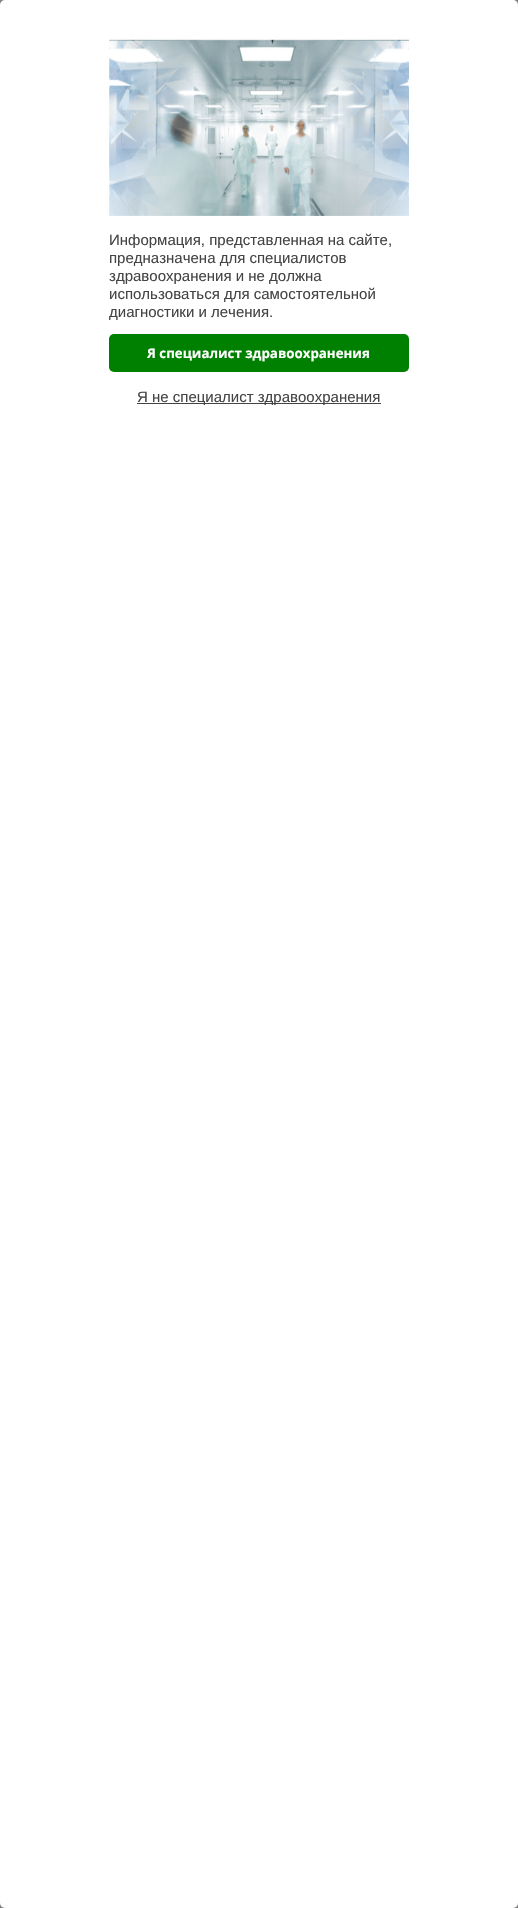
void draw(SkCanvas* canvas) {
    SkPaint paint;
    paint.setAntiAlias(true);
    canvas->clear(0xFF808080);
    paint.setColor(0xFFFFFFFF);
    canvas->drawRoundRect(SkRect::MakeXYWH(0, 0, 518, 1908), 5, 5, paint);
    canvas->drawImageRect(SkImages::DeferredFromEncodedData(SkData::MakeFromFileName("img1.png")), SkRect::MakeXYWH(109, 39, 300, 177), SkSamplingOptions());
    SkFont font1(fontMgr->matchFamilyStyle("Liberation Sans", SkFontStyle::Normal()), 15);
    font1.setSubpixel(true);
    paint.setColor(0xFF444444);
    canvas->drawString("Информация, представленная на сайте,", 109, 245, font1, paint);
    canvas->drawString("предназначена для специалистов", 109, 263, font1, paint);
    canvas->drawString("здравоохранения и не должна", 109, 281, font1, paint);
    canvas->drawString("использоваться для самостоятельной", 109, 299, font1, paint);
    canvas->drawString("диагностики и лечения.", 109, 317, font1, paint);
    paint.setColor(0xFF008000);
    canvas->drawRoundRect(SkRect::MakeXYWH(109, 334, 300, 38), 5, 5, paint);
    SkFont font2(fontMgr->matchFamilyStyle("Open Sans", SkFontStyle::Bold()), 13.3f);
    font2.setSubpixel(true);
    paint.setColor(0xFFFFFFFF);
    canvas->drawString("Я специалист здравоохранения", 147, 358, font2, paint);
    paint.setColor(0xFF444444);
    canvas->drawRect(SkRect::MakeXYWH(137, 403, 244, 1), paint);
    canvas->drawString("Я не специалист здравоохранения", 137, 402, font1, paint);
}
